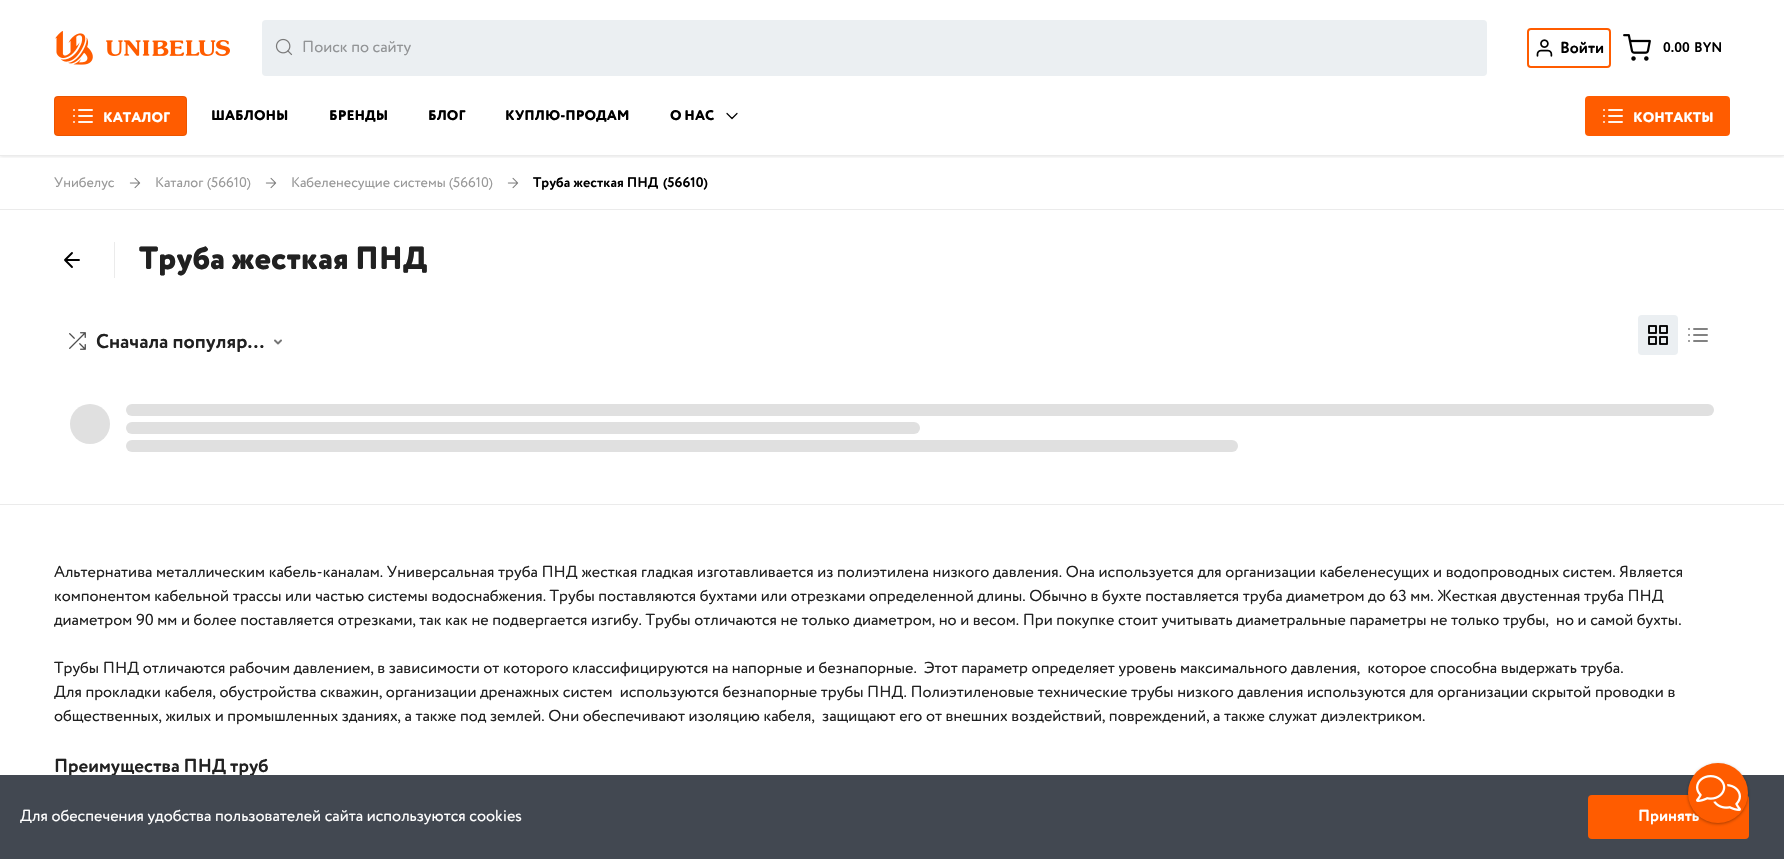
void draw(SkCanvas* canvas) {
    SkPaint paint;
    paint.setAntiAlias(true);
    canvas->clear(0xFFFFFFFF);
    canvas->save();
    canvas->clipRect(SkRect::MakeXYWH(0, 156, 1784, 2));
    paint.setColor(0x24000000);
    paint.setMaskFilter(SkMaskFilter::MakeBlur(kNormal_SkBlurStyle, 2));
    canvas->drawRect(SkRect::MakeXYWH(0, 0, 1784, 156), paint);
    paint.setMaskFilter(nullptr);
    canvas->restore();
    paint.setColor(0xFFEBEBEB);
    canvas->drawRect(SkRect::MakeXYWH(0, 155, 1784, 1), paint);
    canvas->drawImageRect(SkImages::DeferredFromEncodedData(SkData::MakeFromFileName("img1.png")), SkRect::MakeXYWH(55, 31, 38, 34), SkSamplingOptions());
    canvas->drawImageRect(SkImages::DeferredFromEncodedData(SkData::MakeFromFileName("img2.png")), SkRect::MakeXYWH(106, 40, 124, 16), SkSamplingOptions());
    paint.setColor(0xFFEBEFF2);
    canvas->drawRoundRect(SkRect::MakeXYWH(262, 20, 1225, 56), 4, 4, paint);
    canvas->drawImageRect(SkImages::DeferredFromEncodedData(SkData::MakeFromFileName("img3.png")), SkRect::MakeXYWH(275, 38, 18, 18), SkSamplingOptions());
    SkFont font1(fontMgr->matchFamilyStyle("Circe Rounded", SkFontStyle::Normal()), 16);
    font1.setSubpixel(true);
    paint.setColor(0xFF929496);
    canvas->drawString("Поиск по сайту", 302, 52, font1, paint);
    paint.setStyle(SkPaint::kStroke_Style);
    paint.setStrokeWidth(2);
    paint.setColor(0xFFFF5C00);
    canvas->drawRoundRect(SkRect::MakeXYWH(1528, 29, 82, 38), 3, 3, paint);
    paint.setStyle(SkPaint::kFill_Style);
    paint.setColor(0xFFFFFFFF);
    canvas->drawRoundRect(SkRect::MakeXYWH(1529, 30, 80, 36), 4, 4, paint);
    canvas->drawImageRect(SkImages::DeferredFromEncodedData(SkData::MakeFromFileName("img4.png")), SkRect::MakeXYWH(1536, 39, 17, 18), SkSamplingOptions());
    SkFont font2(fontMgr->matchFamilyStyle("Circe Rounded", SkFontStyle::Bold()), 16);
    font2.setSubpixel(true);
    paint.setColor(0xFF000000);
    canvas->drawString("Войти", 1560, 53, font2, paint);
    canvas->drawImageRect(SkImages::DeferredFromEncodedData(SkData::MakeFromFileName("img5.png")), SkRect::MakeXYWH(1623, 34, 28, 27), SkSamplingOptions());
    SkFont font3(fontMgr->matchFamilyStyle("Circe Rounded", SkFontStyle::Bold()), 14);
    font3.setSubpixel(true);
    canvas->drawString("0.00", 1663, 52, font3, paint);
    canvas->drawString("BYN", 1694, 52, font3, paint);
    paint.setColor(0xFFFF5C00);
    canvas->drawRoundRect(SkRect::MakeXYWH(54, 96, 133, 40), 4, 4, paint);
    paint.setStyle(SkPaint::kStroke_Style);
    paint.setStrokeWidth(1);
    paint.setColor(0x14000000);
    canvas->drawRoundRect(SkRect::MakeXYWH(54.5f, 96.5f, 132, 39), 3.5f, 3.5f, paint);
    canvas->drawImageRect(SkImages::DeferredFromEncodedData(SkData::MakeFromFileName("img6.png")), SkRect::MakeXYWH(73, 109, 20, 14), SkSamplingOptions());
    SkFont font4(fontMgr->matchFamilyStyle("Circe Rounded", SkFontStyle(800, SkFontStyle::kNormal_Width, SkFontStyle::kUpright_Slant)), 14);
    font4.setSubpixel(true);
    paint.setStyle(SkPaint::kFill_Style);
    paint.setColor(0xFFFFFFFF);
    canvas->drawString("КАТАЛОГ", 103, 122, font4, paint);
    paint.setColor(0xFF000000);
    canvas->drawString("ШАБЛОНЫ", 211, 120, font4, paint);
    canvas->drawString("БРЕНДЫ", 329, 120, font4, paint);
    canvas->drawString("БЛОГ", 428, 120, font4, paint);
    canvas->drawString("КУПЛЮ-ПРОДАМ", 505, 120, font4, paint);
    canvas->drawString("О НАС", 670, 120, font4, paint);
    paint.setStyle(SkPaint::kStroke_Style);
    paint.setStrokeWidth(1.2f);
    paint.setStrokeCap(SkPaint::kRound_Cap);
    paint.setStrokeJoin(SkPaint::kRound_Join);
    canvas->drawPath(SkPathBuilder().moveTo(727, 113.5f).lineTo(732, 118.5f).lineTo(737, 113.5f).detach(), paint);
    paint.setStyle(SkPaint::kFill_Style);
    paint.setColor(0xFFFF5C00);
    canvas->drawRoundRect(SkRect::MakeXYWH(1585, 96, 145, 40), 4, 4, paint);
    canvas->drawImageRect(SkImages::DeferredFromEncodedData(SkData::MakeFromFileName("img6.png")), SkRect::MakeXYWH(1603, 109, 20, 14), SkSamplingOptions());
    paint.setColor(0xFFFFFFFF);
    canvas->drawString("КОНТАКТЫ", 1633, 122, font4, paint);
    paint.setColor(0xFFEBEBEB);
    canvas->drawRect(SkRect::MakeXYWH(0, 209, 1784, 1), paint);
    SkFont font5(fontMgr->matchFamilyStyle("Circe Rounded", SkFontStyle::Normal()), 14);
    font5.setSubpixel(true);
    paint.setColor(0xFF999999);
    canvas->drawString("Унибелус", 54, 187, font5, paint);
    canvas->drawImageRect(SkImages::DeferredFromEncodedData(SkData::MakeFromFileName("img7.png")), SkRect::MakeXYWH(129, 177, 12, 12), SkSamplingOptions());
    canvas->drawString("Каталог", 155, 187, font5, paint);
    canvas->drawString("(56610)", 207, 187, font5, paint);
    canvas->drawImageRect(SkImages::DeferredFromEncodedData(SkData::MakeFromFileName("img7.png")), SkRect::MakeXYWH(265, 177, 12, 12), SkSamplingOptions());
    canvas->drawString("Кабеленесущие системы", 291, 187, font5, paint);
    canvas->drawString("(56610)", 449, 187, font5, paint);
    canvas->drawImageRect(SkImages::DeferredFromEncodedData(SkData::MakeFromFileName("img7.png")), SkRect::MakeXYWH(507, 177, 12, 12), SkSamplingOptions());
    paint.setColor(0xFF000000);
    canvas->drawString("Труба жесткая ПНД", 533, 187, font3, paint);
    canvas->drawString("(56610)", 663, 187, font3, paint);
    paint.setStyle(SkPaint::kStroke_Style);
    paint.setStrokeWidth(1.9f);
    canvas->drawPath(SkPathBuilder().moveTo(79, 260).lineTo(65, 260).moveTo(72, 267).lineTo(65, 260).lineTo(72, 253).detach(), paint);
    paint.setStyle(SkPaint::kFill_Style);
    paint.setColor(0xFFEBEBEB);
    canvas->drawRect(SkRect::MakeXYWH(114, 242, 1, 36), paint);
    SkFont font6(fontMgr->matchFamilyStyle("Circe Rounded", SkFontStyle(800, SkFontStyle::kNormal_Width, SkFontStyle::kUpright_Slant)), 32);
    font6.setSubpixel(true);
    paint.setColor(0xFF212121);
    canvas->drawString("Труба жесткая ПНД", 139, 269, font6, paint);
    canvas->drawImageRect(SkImages::DeferredFromEncodedData(SkData::MakeFromFileName("img8.png")), SkRect::MakeXYWH(69, 332, 17, 18), SkSamplingOptions());
    SkFont font7(fontMgr->matchFamilyStyle("Circe Rounded", SkFontStyle::Bold()), 20);
    font7.setSubpixel(true);
    canvas->drawString("Сначала популяр…", 96, 348, font7, paint);
    canvas->drawImageRect(SkImages::DeferredFromEncodedData(SkData::MakeFromFileName("img9.png")), SkRect::MakeXYWH(274, 339, 8, 6), SkSamplingOptions());
    paint.setColor(0xFFEBEFF2);
    canvas->drawRoundRect(SkRect::MakeXYWH(1638, 315, 40, 40), 4, 4, paint);
    canvas->drawImageRect(SkImages::DeferredFromEncodedData(SkData::MakeFromFileName("img10.png")), SkRect::MakeXYWH(1648, 325, 20, 20), SkSamplingOptions());
    canvas->drawImageRect(SkImages::DeferredFromEncodedData(SkData::MakeFromFileName("img11.png")), SkRect::MakeXYWH(1688, 328, 20, 14), SkSamplingOptions());
    paint.setColor(0xFFE0E0E0);
    canvas->drawCircle(90, 424, 20, paint);
    canvas->drawRoundRect(SkRect::MakeXYWH(126, 404, 1588, 12), 6, 6, paint);
    canvas->drawRoundRect(SkRect::MakeXYWH(126, 422, 794, 12), 6, 6, paint);
    canvas->drawRoundRect(SkRect::MakeXYWH(126, 440, 1112, 12), 6, 6, paint);
    paint.setColor(0xFFEBEBEB);
    canvas->drawRect(SkRect::MakeXYWH(0, 504, 1784, 1), paint);
    paint.setColor(0xFF212121);
    canvas->drawString("Альтернатива металлическим кабель-каналам. Универсальная труба ПНД жесткая гладкая изготавливается из полиэтилена низкого давления. Она используется для организации кабеленесущих и водопроводных систем. Является", 54, 577, font1, paint);
    canvas->drawString("компонентом кабельной трассы или частью системы водоснабжения. Трубы поставляются бухтами или отрезками определенной длины. Обычно в бухте поставляется труба диаметром до 63 мм. Жесткая двустенная труба ПНД", 54, 601, font1, paint);
    canvas->drawString("диаметром 90 мм и более поставляется отрезками, так как не подвергается изгибу. Трубы отличаются не только диаметром, но и весом. При покупке стоит учитывать диаметральные параметры не только трубы,  но и самой бухты.", 54, 625, font1, paint);
    canvas->drawString("Трубы ПНД отличаются рабочим давлением, в зависимости от которого классифицируются на напорные и безнапорные.  Этот параметр определяет уровень максимального давления,  которое способна выдержать труба.", 54, 673, font1, paint);
    canvas->drawString("Для прокладки кабеля, обустройства скважин, организации дренажных систем  используются безнапорные трубы ПНД. Полиэтиленовые технические трубы низкого давления используются для организации скрытой проводки в", 54, 697, font1, paint);
    canvas->drawString("общественных, жилых и промышленных зданиях, а также под землей. Они обеспечивают изоляцию кабеля,  защищают его от внешних воздействий, повреждений, а также служат диэлектриком.", 54, 721, font1, paint);
    SkFont font8(fontMgr->matchFamilyStyle("Circe Rounded", SkFontStyle::Bold()), 18.75f);
    font8.setSubpixel(true);
    canvas->drawString("Преимущества ПНД труб", 54, 772, font8, paint);
    paint.setColor(0xFF424851);
    canvas->drawRect(SkRect::MakeXYWH(0, 775, 1784, 84), paint);
    paint.setColor(0xFFFFFFFF);
    canvas->drawString("Для обеспечения удобства пользователей сайта используются cookies", 20, 821, font1, paint);
    paint.setColor(0xFFFF5C00);
    canvas->drawRoundRect(SkRect::MakeXYWH(1588, 795, 161, 44), 4, 4, paint);
    paint.setColor(0xFFFFFFFF);
    canvas->drawString("Принять", 1638, 821, font2, paint);
    paint.setColor(0x54000000);
    paint.setMaskFilter(SkMaskFilter::MakeBlur(kNormal_SkBlurStyle, 1.5f));
    canvas->drawRoundRect(SkRect::MakeXYWH(1688, 764, 60, 60), 30, 30, paint);
    paint.setMaskFilter(nullptr);
    paint.setColor(0xFFFF5C00);
    canvas->drawCircle(1718, 793, 30, paint);
    canvas->drawImageRect(SkImages::DeferredFromEncodedData(SkData::MakeFromFileName("img12.png")), SkRect::MakeXYWH(1696, 775, 45, 36), SkSamplingOptions());
}
